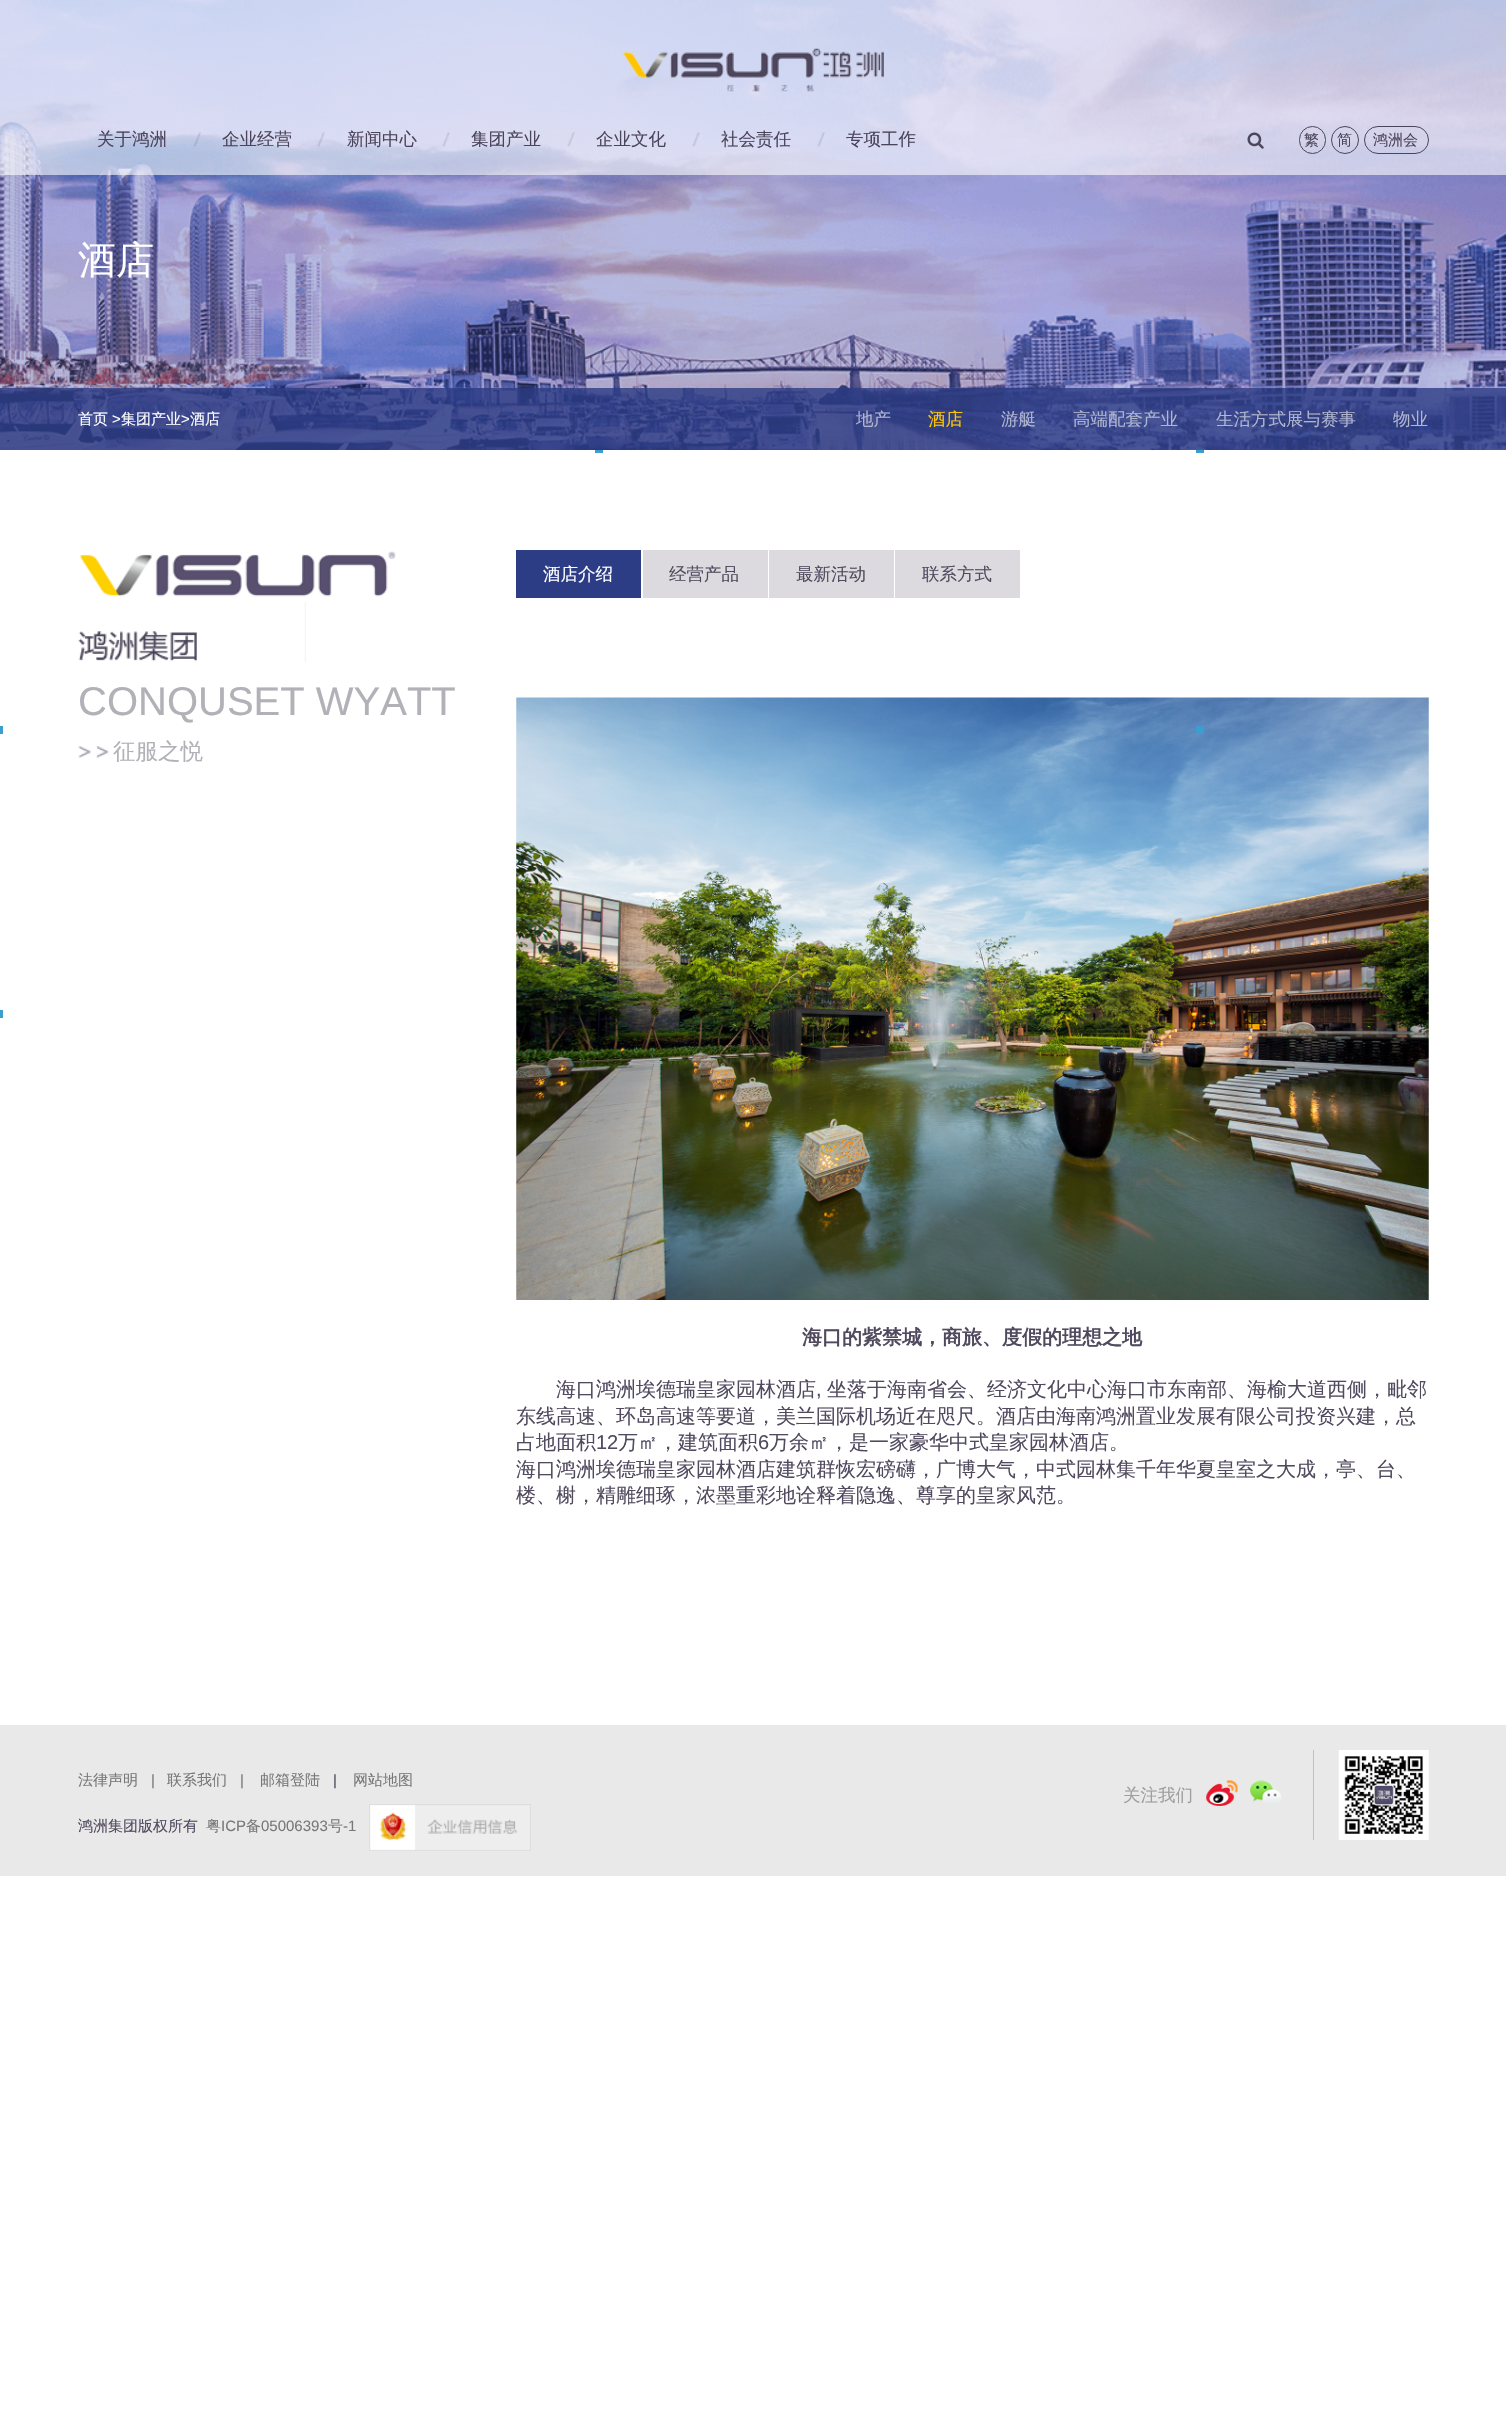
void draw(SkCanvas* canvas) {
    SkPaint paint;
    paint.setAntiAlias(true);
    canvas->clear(0xFFFFFFFF);
    canvas->drawImageRect(SkImages::DeferredFromEncodedData(SkData::MakeFromFileName("img9.png")), SkRect::MakeXYWH(0, 0, 1506, 450), SkSamplingOptions());
    paint.setColor(0x99FFFFFF);
    canvas->drawRect(SkRect::MakeXYWH(0, 0, 1506, 175), paint);
    canvas->drawImageRect(SkImages::DeferredFromEncodedData(SkData::MakeFromFileName("img1.png")), SkRect::MakeXYWH(623, 48, 261, 44), SkSamplingOptions());
    canvas->drawImageRect(SkImages::DeferredFromEncodedData(SkData::MakeFromFileName("img2.png")), SkRect::MakeXYWH(193, 132, 8, 15), SkSamplingOptions());
    SkFont font1(fontMgr->matchFamilyStyle("WenQuanYi Zen Hei", SkFontStyle(500, SkFontStyle::kNormal_Width, SkFontStyle::kUpright_Slant)), 17.5f);
    font1.setSubpixel(true);
    paint.setColor(0xFF4B445A);
    canvas->drawString("关于鸿洲", 97, 145, font1, paint);
    canvas->drawImageRect(SkImages::DeferredFromEncodedData(SkData::MakeFromFileName("img3.png")), SkRect::MakeXYWH(317, 132, 8, 15), SkSamplingOptions());
    canvas->drawString("企业经营", 222, 145, font1, paint);
    canvas->drawImageRect(SkImages::DeferredFromEncodedData(SkData::MakeFromFileName("img4.png")), SkRect::MakeXYWH(442, 132, 8, 15), SkSamplingOptions());
    canvas->drawString("新闻中心", 347, 145, font1, paint);
    canvas->drawImageRect(SkImages::DeferredFromEncodedData(SkData::MakeFromFileName("img5.png")), SkRect::MakeXYWH(567, 132, 8, 15), SkSamplingOptions());
    canvas->drawString("集团产业", 471, 145, font1, paint);
    canvas->drawImageRect(SkImages::DeferredFromEncodedData(SkData::MakeFromFileName("img6.png")), SkRect::MakeXYWH(692, 132, 8, 15), SkSamplingOptions());
    canvas->drawString("企业文化", 596, 145, font1, paint);
    canvas->drawImageRect(SkImages::DeferredFromEncodedData(SkData::MakeFromFileName("img7.png")), SkRect::MakeXYWH(817, 132, 8, 15), SkSamplingOptions());
    canvas->drawString("社会责任", 721, 145, font1, paint);
    canvas->drawString("专项工作", 846, 145, font1, paint);
    canvas->drawImageRect(SkImages::DeferredFromEncodedData(SkData::MakeFromFileName("img8.png")), SkRect::MakeXYWH(1247, 132, 17, 17), SkSamplingOptions());
    paint.setStyle(SkPaint::kStroke_Style);
    paint.setStrokeWidth(1);
    canvas->drawRoundRect(SkRect::MakeXYWH(1299.5f, 126.5f, 26, 27), 13, 13, paint);
    SkFont font2(fontMgr->matchFamilyStyle("WenQuanYi Zen Hei", SkFontStyle(500, SkFontStyle::kNormal_Width, SkFontStyle::kUpright_Slant)), 15);
    font2.setSubpixel(true);
    paint.setStyle(SkPaint::kFill_Style);
    canvas->drawString("繁", 1304, 145, font2, paint);
    paint.setStyle(SkPaint::kStroke_Style);
    canvas->drawCircle(1345, 140, 13.5f, paint);
    paint.setStyle(SkPaint::kFill_Style);
    canvas->drawString("简", 1337, 145, font2, paint);
    paint.setStyle(SkPaint::kStroke_Style);
    canvas->drawRoundRect(SkRect::MakeXYWH(1364.5f, 126.5f, 64, 27), 13.5f, 13.5f, paint);
    paint.setStyle(SkPaint::kFill_Style);
    canvas->drawString("鸿洲会", 1373, 145, font2, paint);
    SkFont font3(fontMgr->matchFamilyStyle("WenQuanYi Zen Hei", SkFontStyle(500, SkFontStyle::kNormal_Width, SkFontStyle::kUpright_Slant)), 38);
    font3.setSubpixel(true);
    paint.setColor(0xFFFFFFFF);
    canvas->drawString("酒店", 78, 273, font3, paint);
    paint.setColor(0xCC2C3C85);
    canvas->drawRect(SkRect::MakeXYWH(0, 388, 1506, 62), paint);
    paint.setColor(0xFFFFFFFF);
    canvas->drawString("首页", 78, 424, font2, paint);
    SkFont font4(fontMgr->matchFamilyStyle("Liberation Sans", SkFontStyle::Normal()), 15);
    font4.setSubpixel(true);
    canvas->drawString(">", 112, 424, font4, paint);
    canvas->drawString("集团产业", 121, 424, font2, paint);
    canvas->drawString(">", 181, 424, font4, paint);
    canvas->drawString("酒店", 190, 424, font2, paint);
    paint.setColor(0xFFB0B5D0);
    canvas->drawString("地产", 856, 425, font1, paint);
    paint.setColor(0xFFFFC400);
    canvas->drawString("酒店", 928, 425, font1, paint);
    paint.setColor(0xFFB0B5D0);
    canvas->drawString("游艇", 1001, 425, font1, paint);
    canvas->drawString("高端配套产业", 1073, 425, font1, paint);
    canvas->drawString("生活方式展与赛事", 1216, 425, font1, paint);
    canvas->drawString("物业", 1393, 425, font1, paint);
    canvas->drawImageRect(SkImages::DeferredFromEncodedData(SkData::MakeFromFileName("img10.png")), SkRect::MakeXYWH(78, 551, 318, 112), SkSamplingOptions());
    SkFont font5(fontMgr->matchFamilyStyle("Liberation Sans", SkFontStyle::Normal()), 40);
    font5.setSubpixel(true);
    paint.setColor(0xFFB2B1B7);
    canvas->drawString("CONQUSET WYATT", 78, 715, font5, paint);
    canvas->drawImageRect(SkImages::DeferredFromEncodedData(SkData::MakeFromFileName("img11.png")), SkRect::MakeXYWH(78, 746, 31, 12), SkSamplingOptions());
    SkFont font6(fontMgr->matchFamilyStyle("WenQuanYi Zen Hei", SkFontStyle(500, SkFontStyle::kNormal_Width, SkFontStyle::kUpright_Slant)), 22.5f);
    font6.setSubpixel(true);
    canvas->drawString("征服之悦", 113, 759, font6, paint);
    paint.setColor(0xFF2C3C85);
    canvas->drawRect(SkRect::MakeXYWH(516, 550, 125, 48), paint);
    paint.setColor(0xFFFFFFFF);
    canvas->drawString("酒店介绍", 543, 580, font1, paint);
    paint.setColor(0xFFDCDADE);
    canvas->drawRect(SkRect::MakeXYWH(643, 550, 125, 48), paint);
    paint.setColor(0xFF514A5F);
    canvas->drawString("经营产品", 669, 580, font1, paint);
    paint.setColor(0xFFDCDADE);
    canvas->drawRect(SkRect::MakeXYWH(769, 550, 125, 48), paint);
    paint.setColor(0xFF514A5F);
    canvas->drawString("最新活动", 796, 580, font1, paint);
    paint.setColor(0xFFDCDADE);
    canvas->drawRect(SkRect::MakeXYWH(895, 550, 125, 48), paint);
    paint.setColor(0xFF514A5F);
    canvas->drawString("联系方式", 922, 580, font1, paint);
    paint.setColor(0xFF3C9DD0);
    canvas->drawRect(SkRect::MakeXYWH(595, 450, 8, 3), paint);
    canvas->drawRect(SkRect::MakeXYWH(1196, 450, 8, 3), paint);
    canvas->drawRect(SkRect::MakeXYWH(0, 726, 3, 8), paint);
    canvas->drawImageRect(SkImages::DeferredFromEncodedData(SkData::MakeFromFileName("img12.png")), SkRect::MakeXYWH(516, 697, 913, 603), SkSamplingOptions());
    canvas->drawRect(SkRect::MakeXYWH(1196, 726, 8, 8), paint);
    canvas->drawRect(SkRect::MakeXYWH(0, 1010, 3, 8), paint);
    SkFont font7(fontMgr->matchFamilyStyle("WenQuanYi Zen Hei", SkFontStyle::Bold()), 20);
    font7.setSubpixel(true);
    paint.setColor(0xFF514A5F);
    canvas->drawString("海口的紫禁城，商旅、度假的理想之地", 802, 1344, font7, paint);
    SkFont font8(fontMgr->matchFamilyStyle("WenQuanYi Zen Hei", SkFontStyle(500, SkFontStyle::kNormal_Width, SkFontStyle::kUpright_Slant)), 20);
    font8.setSubpixel(true);
    canvas->drawString("海口鸿洲埃德瑞皇家园林酒店", 556, 1396, font8, paint);
    SkFont font9(fontMgr->matchFamilyStyle("Liberation Sans", SkFontStyle::Normal()), 20);
    font9.setSubpixel(true);
    canvas->drawString(",", 816, 1396, font9, paint);
    canvas->drawString("坐落于海南省会、经济文化中心海口市东南部、海榆大道西侧，毗邻", 827, 1396, font8, paint);
    canvas->drawString("东线高速、环岛高速等要道，美兰国际机场近在咫尺。酒店由海南鸿洲置业发展有限公司投资兴建，总", 516, 1423, font8, paint);
    canvas->drawString("占地面积", 516, 1449, font8, paint);
    canvas->drawString("12", 596, 1449, font9, paint);
    canvas->drawString("万㎡，建筑面积", 618, 1449, font8, paint);
    canvas->drawString("6", 758, 1449, font9, paint);
    canvas->drawString("万余㎡，是一家豪华中式皇家园林酒店。", 769, 1449, font8, paint);
    canvas->drawString("海口鸿洲埃德瑞皇家园林酒店建筑群恢宏磅礴，广博大气，中式园林集千年华夏皇室之大成，亭、台、", 516, 1476, font8, paint);
    canvas->drawString("楼、榭，精雕细琢，浓墨重彩地诠释着隐逸、尊享的皇家风范。", 516, 1502, font8, paint);
    paint.setColor(0xFFE9E9E9);
    canvas->drawRect(SkRect::MakeXYWH(0, 1725, 1506, 151), paint);
    paint.setColor(0xFF797878);
    canvas->drawString("法律声明", 78, 1785, font2, paint);
    canvas->drawString("|", 151, 1785, font4, paint);
    canvas->drawString("联系我们", 167, 1785, font2, paint);
    canvas->drawString("|", 240, 1785, font4, paint);
    canvas->drawString("邮箱登陆", 260, 1785, font2, paint);
    paint.setColor(0xFF514A5F);
    canvas->drawString("|", 333, 1785, font4, paint);
    paint.setColor(0xFF797878);
    canvas->drawString("网站地图", 353, 1785, font2, paint);
    paint.setColor(0xFF514A5F);
    canvas->drawString("鸿洲集团版权所有", 78, 1831, font2, paint);
    paint.setColor(0xFF797878);
    canvas->drawString("粤", 206, 1831, font2, paint);
    canvas->drawString("ICP", 221, 1831, font4, paint);
    canvas->drawString("备", 246, 1831, font2, paint);
    canvas->drawString("05006393", 261, 1831, font4, paint);
    canvas->drawString("号", 328, 1831, font2, paint);
    canvas->drawString("-1", 343, 1831, font4, paint);
    canvas->drawImageRect(SkImages::DeferredFromEncodedData(SkData::MakeFromFileName("img13.png")), SkRect::MakeXYWH(369, 1804, 162, 47), SkSamplingOptions());
    paint.setColor(0xFFBFBFBF);
    canvas->drawRect(SkRect::MakeXYWH(1313, 1750, 1, 90), paint);
    paint.setColor(0xFF9E9E9E);
    canvas->drawString("关注我们", 1123, 1801, font1, paint);
    canvas->drawImageRect(SkImages::DeferredFromEncodedData(SkData::MakeFromFileName("img14.png")), SkRect::MakeXYWH(1206, 1780, 32, 26), SkSamplingOptions());
    canvas->drawImageRect(SkImages::DeferredFromEncodedData(SkData::MakeFromFileName("img15.png")), SkRect::MakeXYWH(1250, 1780, 31, 25), SkSamplingOptions());
    canvas->drawImageRect(SkImages::DeferredFromEncodedData(SkData::MakeFromFileName("img16.png")), SkRect::MakeXYWH(1338, 1750, 91, 90), SkSamplingOptions());
}
